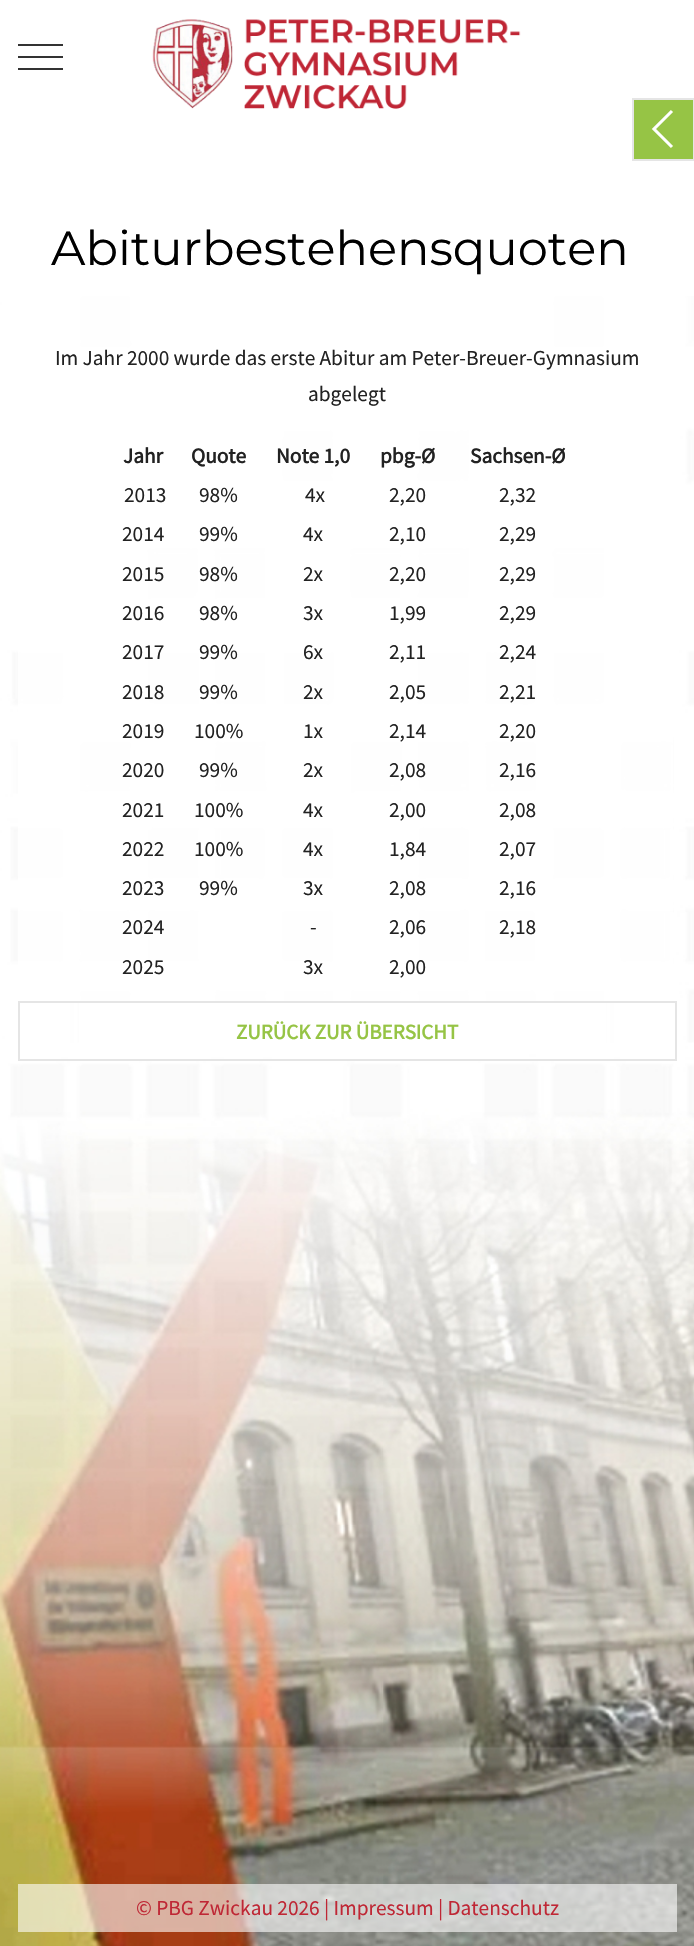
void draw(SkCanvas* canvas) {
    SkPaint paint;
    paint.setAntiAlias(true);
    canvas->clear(0xFFFFFFFF);
    canvas->drawImageRect(SkImages::DeferredFromEncodedData(SkData::MakeFromFileName("img1.png")), SkRect::MakeXYWH(0, 296, 694, 1650), SkSamplingOptions());
    paint.setColor(0xFF333333);
    canvas->drawRect(SkRect::MakeXYWH(18, 56, 45, 2), paint);
    canvas->drawRect(SkRect::MakeXYWH(18, 44, 45, 2), paint);
    canvas->drawRect(SkRect::MakeXYWH(18, 68, 45, 2), paint);
    canvas->drawImageRect(SkImages::DeferredFromEncodedData(SkData::MakeFromFileName("img2.png")), SkRect::MakeXYWH(152, 19, 369, 90), SkSamplingOptions());
    paint.setColor(0xCCFFFFFF);
    canvas->drawRect(SkRect::MakeXYWH(18, 296, 655, 705), paint);
    SkFont font1(fontMgr->matchFamilyStyle("Montserrat", SkFontStyle::Normal()), 48);
    font1.setSubpixel(true);
    paint.setColor(0xFF000000);
    canvas->drawString("Abiturbestehensquoten", 51, 265, font1, paint);
    SkFont font2(fontMgr->matchFamilyStyle("Source Sans Pro", SkFontStyle::Normal()), 21.35f);
    font2.setSubpixel(true);
    paint.setColor(0xFF222222);
    canvas->drawString("Im Jahr 2000 wurde das erste Abitur am Peter-Breuer-Gymnasium", 55, 365, font2, paint);
    canvas->drawString("abgelegt", 308, 401, font2, paint);
    SkFont font3(fontMgr->matchFamilyStyle("Source Sans Pro", SkFontStyle::Bold()), 21.35f);
    font3.setSubpixel(true);
    canvas->drawString("Jahr", 123, 463, font3, paint);
    canvas->drawString("Quote", 191, 463, font3, paint);
    canvas->drawString("Note 1,0", 276, 463, font3, paint);
    canvas->drawString("pbg-Ø", 380, 463, font3, paint);
    canvas->drawString("Sachsen-Ø", 470, 463, font3, paint);
    canvas->drawString("2013", 124, 502, font2, paint);
    canvas->drawString("98%", 199, 502, font2, paint);
    canvas->drawString("4x", 305, 502, font2, paint);
    canvas->drawString("2,20", 389, 502, font2, paint);
    canvas->drawString("2,32", 499, 502, font2, paint);
    canvas->drawString("2014", 122, 541, font2, paint);
    canvas->drawString("99%", 199, 541, font2, paint);
    canvas->drawString("4x", 303, 541, font2, paint);
    canvas->drawString("2,10", 389, 541, font2, paint);
    canvas->drawString("2,29", 499, 541, font2, paint);
    canvas->drawString("2015", 122, 581, font2, paint);
    canvas->drawString("98%", 199, 581, font2, paint);
    canvas->drawString("2x", 303, 581, font2, paint);
    canvas->drawString("2,20", 389, 581, font2, paint);
    canvas->drawString("2,29", 499, 581, font2, paint);
    canvas->drawString("2016", 122, 620, font2, paint);
    canvas->drawString("98%", 199, 620, font2, paint);
    canvas->drawString("3x", 303, 620, font2, paint);
    canvas->drawString("1,99", 389, 620, font2, paint);
    canvas->drawString("2,29", 499, 620, font2, paint);
    canvas->drawString("2017", 122, 659, font2, paint);
    canvas->drawString("99%", 199, 659, font2, paint);
    canvas->drawString("6x", 303, 659, font2, paint);
    canvas->drawString("2,11", 389, 659, font2, paint);
    canvas->drawString("2,24", 499, 659, font2, paint);
    canvas->drawString("2018", 122, 699, font2, paint);
    canvas->drawString("99%", 199, 699, font2, paint);
    canvas->drawString("2x", 303, 699, font2, paint);
    canvas->drawString("2,05", 389, 699, font2, paint);
    canvas->drawString("2,21", 499, 699, font2, paint);
    canvas->drawString("2019", 122, 738, font2, paint);
    canvas->drawString("100%", 194, 738, font2, paint);
    canvas->drawString("1x", 303, 738, font2, paint);
    canvas->drawString("2,14", 389, 738, font2, paint);
    canvas->drawString("2,20", 499, 738, font2, paint);
    canvas->drawString("2020", 122, 777, font2, paint);
    canvas->drawString("99%", 199, 777, font2, paint);
    canvas->drawString("2x", 303, 777, font2, paint);
    canvas->drawString("2,08", 389, 777, font2, paint);
    canvas->drawString("2,16", 499, 777, font2, paint);
    canvas->drawString("2021", 122, 817, font2, paint);
    canvas->drawString("100%", 194, 817, font2, paint);
    canvas->drawString("4x", 303, 817, font2, paint);
    canvas->drawString("2,00", 389, 817, font2, paint);
    canvas->drawString("2,08", 499, 817, font2, paint);
    canvas->drawString("2022", 122, 856, font2, paint);
    canvas->drawString("100%", 194, 856, font2, paint);
    canvas->drawString("4x", 303, 856, font2, paint);
    canvas->drawString("1,84", 389, 856, font2, paint);
    canvas->drawString("2,07", 499, 856, font2, paint);
    canvas->drawString("2023", 122, 895, font2, paint);
    canvas->drawString("99%", 199, 895, font2, paint);
    canvas->drawString("3x", 303, 895, font2, paint);
    canvas->drawString("2,08", 389, 895, font2, paint);
    canvas->drawString("2,16", 499, 895, font2, paint);
    canvas->drawString("2024", 122, 934, font2, paint);
    canvas->drawString("-", 310, 934, font2, paint);
    canvas->drawString("2,06", 389, 934, font2, paint);
    canvas->drawString("2,18", 499, 934, font2, paint);
    canvas->drawString("2025", 122, 974, font2, paint);
    canvas->drawString("3x", 303, 974, font2, paint);
    canvas->drawString("2,00", 389, 974, font2, paint);
    paint.setColor(0xFF96C445);
    canvas->drawRect(SkRect::MakeXYWH(633, 99, 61, 61), paint);
    paint.setStyle(SkPaint::kStroke_Style);
    paint.setStrokeWidth(2);
    paint.setColor(0xFFE5E5E5);
    canvas->drawRect(SkRect::MakeXYWH(633, 99, 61, 61), paint);
    paint.setStrokeWidth(3.1f);
    paint.setColor(0xFFFFFFFF);
    canvas->drawPath(SkPathBuilder().moveTo(672, 147).lineTo(654, 129).lineTo(672, 111).detach(), paint);
    paint.setStyle(SkPaint::kFill_Style);
    canvas->drawRect(SkRect::MakeXYWH(79, 1003, 527, 40), paint);
    paint.setStyle(SkPaint::kStroke_Style);
    paint.setStrokeWidth(2);
    paint.setColor(0xFFE5E5E5);
    canvas->drawRect(SkRect::MakeXYWH(19, 1002, 657, 58), paint);
    SkFont font4(fontMgr->matchFamilyStyle("Source Sans Pro", SkFontStyle::Bold()), 21);
    font4.setSubpixel(true);
    paint.setStyle(SkPaint::kFill_Style);
    paint.setColor(0xFF96C445);
    canvas->drawString("ZURÜCK ZUR ÜBERSICHT", 236, 1039, font4, paint);
    paint.setColor(0x99FFFFFF);
    canvas->drawRect(SkRect::MakeXYWH(18, 1884, 659, 48), paint);
    paint.setColor(0xFFBF2735);
    canvas->drawString("© PBG Zwickau 2026 | Impressum | Datenschutz", 136, 1915, font2, paint);
}
